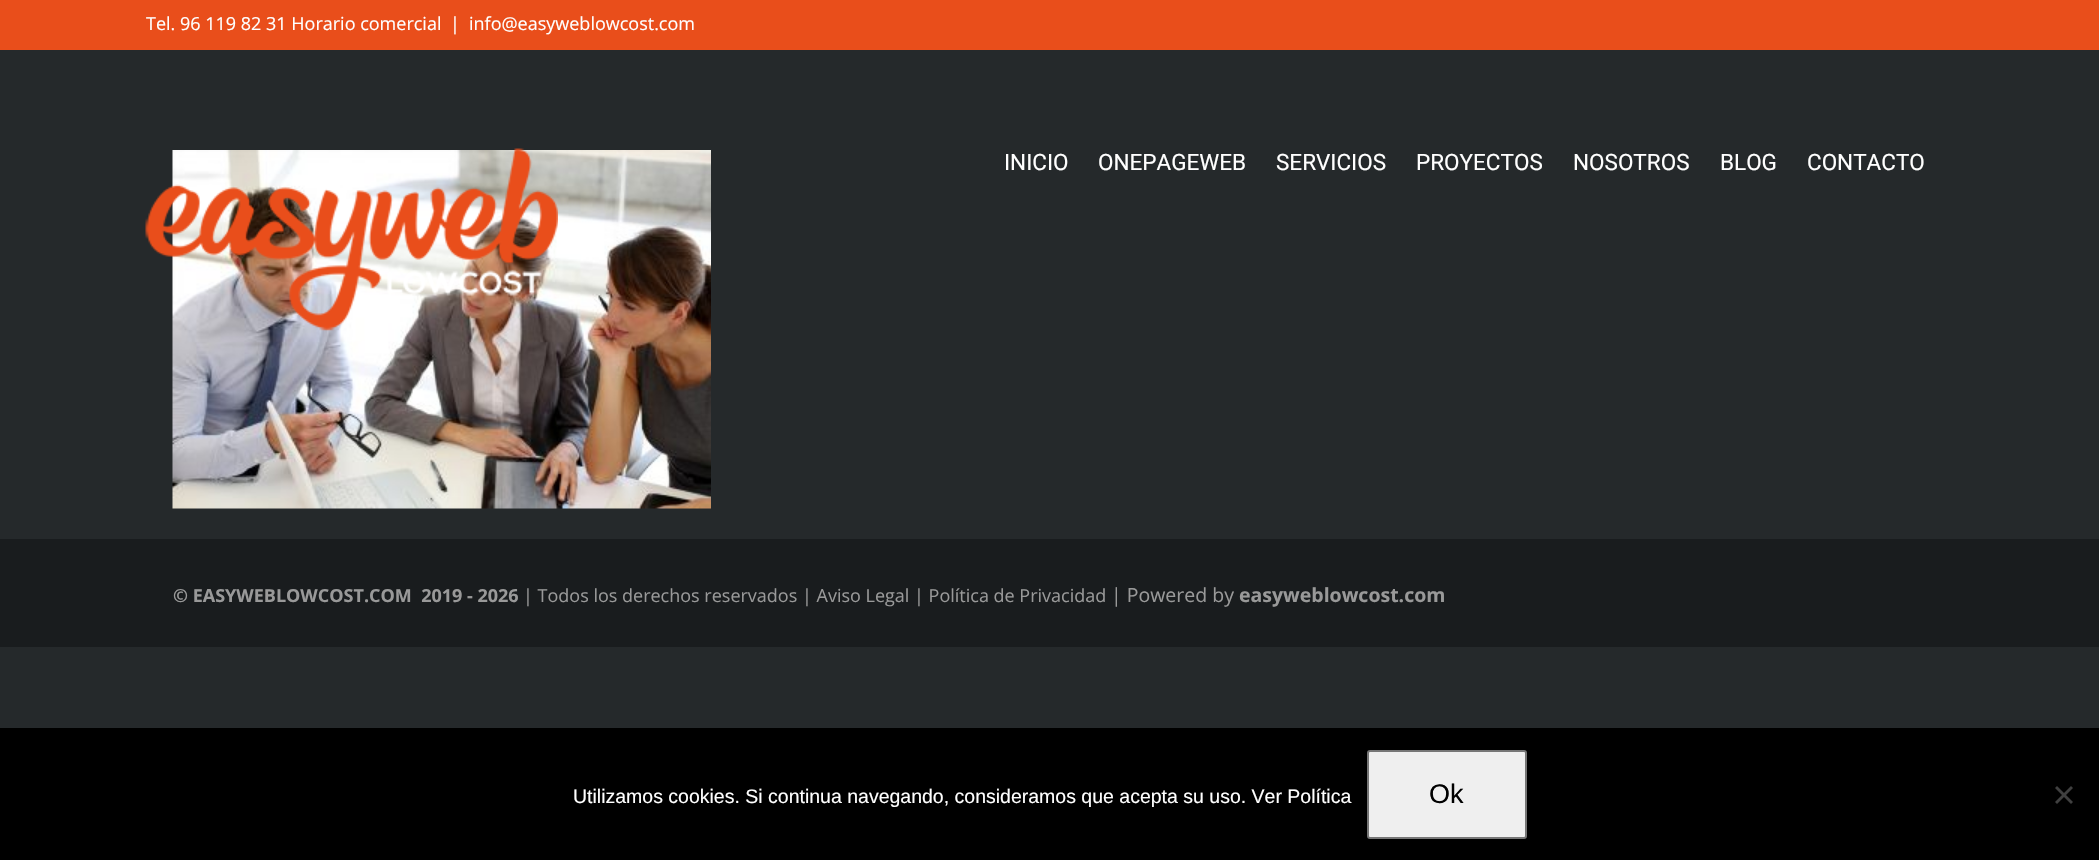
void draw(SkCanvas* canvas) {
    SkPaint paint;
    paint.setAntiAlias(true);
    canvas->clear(0xFF25292B);
    paint.setColor(0xFFE94E1B);
    canvas->drawRect(SkRect::MakeXYWH(0, 0, 2099, 50), paint);
    SkFont font1(fontMgr->matchFamilyStyle("Open Sans", SkFontStyle::Normal()), 18);
    font1.setSubpixel(true);
    paint.setColor(0xFFFFFFFF);
    canvas->drawString("Tel. 96 119 82 31 Horario comercial", 146, 30, font1, paint);
    canvas->drawString("|", 450, 30, font1, paint);
    canvas->drawString("info@easyweblowcost.com", 469, 30, font1, paint);
    canvas->drawImageRect(SkImages::DeferredFromEncodedData(SkData::MakeFromFileName("img2.png")), SkRect::MakeXYWH(172, 150, 539, 359), SkSamplingOptions());
    canvas->drawImageRect(SkImages::DeferredFromEncodedData(SkData::MakeFromFileName("img1.png")), SkRect::MakeXYWH(145, 148, 413, 183), SkSamplingOptions());
    SkFont font2(fontMgr->matchFamilyStyle("Roboto", SkFontStyle::Normal()), 22.5f);
    font2.setSubpixel(true);
    canvas->drawString("INICIO", 1004, 170, font2, paint);
    canvas->drawString("ONEPAGEWEB", 1098, 170, font2, paint);
    canvas->drawString("SERVICIOS", 1276, 170, font2, paint);
    canvas->drawString("PROYECTOS", 1416, 170, font2, paint);
    canvas->drawString("NOSOTROS", 1573, 170, font2, paint);
    canvas->drawString("BLOG", 1720, 170, font2, paint);
    canvas->drawString("CONTACTO", 1807, 170, font2, paint);
    paint.setColor(0xFF191C1E);
    canvas->drawRect(SkRect::MakeXYWH(0, 539, 2099, 108), paint);
    SkFont font3(fontMgr->matchFamilyStyle("Open Sans", SkFontStyle::Bold()), 18);
    font3.setSubpixel(true);
    paint.setColor(0xFF999999);
    canvas->drawString("© EASYWEBLOWCOST.COM  2019 - 2026", 173, 602, font3, paint);
    canvas->drawString("| Todos los derechos reservados | Aviso Legal | Política de Privacidad", 523, 602, font1, paint);
    SkFont font4(fontMgr->matchFamilyStyle("Open Sans", SkFontStyle::Normal()), 19.5f);
    font4.setSubpixel(true);
    canvas->drawString("| Powered by", 1111, 602, font4, paint);
    SkFont font5(fontMgr->matchFamilyStyle("Open Sans", SkFontStyle::Bold()), 19.5f);
    font5.setSubpixel(true);
    canvas->drawString("easyweblowcost.com", 1239, 602, font5, paint);
    paint.setColor(0xFF000000);
    canvas->drawRect(SkRect::MakeXYWH(0, 728, 2099, 132), paint);
    SkFont font6(fontMgr->matchFamilyStyle("Liberation Sans", SkFontStyle::Normal()), 19.5f);
    font6.setSubpixel(true);
    paint.setColor(0xFFFFFFFF);
    canvas->drawString("Utilizamos cookies. Si continua navegando, consideramos que acepta su uso. Ver Política", 573, 803, font6, paint);
    paint.setColor(0xFFEFEFEF);
    canvas->drawRoundRect(SkRect::MakeXYWH(1368, 751, 158, 87), 2, 2, paint);
    paint.setStyle(SkPaint::kStroke_Style);
    paint.setStrokeWidth(2);
    paint.setColor(0xFF767676);
    canvas->drawRoundRect(SkRect::MakeXYWH(1368, 751, 158, 87), 2, 2, paint);
    SkFont font7(fontMgr->matchFamilyStyle("Liberation Sans", SkFontStyle::Normal()), 27);
    font7.setSubpixel(true);
    paint.setStyle(SkPaint::kFill_Style);
    paint.setColor(0xFF000000);
    canvas->drawString("Ok", 1429, 803, font7, paint);
    paint.setColor(0xFF404040);
    canvas->drawPath(SkPathBuilder().moveTo(2071, 786).lineTo(2073, 788).lineTo(2057, 804).lineTo(2055, 802).close().detach(), paint);
    canvas->drawPath(SkPathBuilder().moveTo(2055, 788).lineTo(2057, 786).lineTo(2073, 802).lineTo(2071, 804).close().detach(), paint);
}
